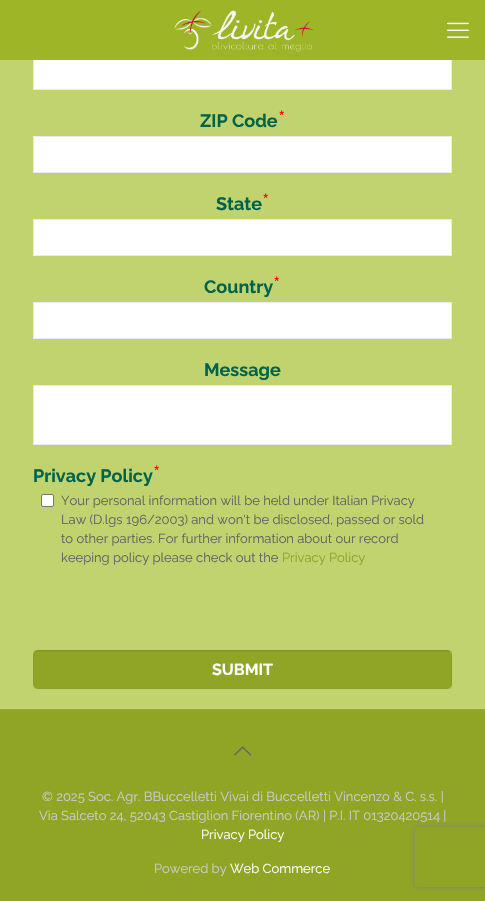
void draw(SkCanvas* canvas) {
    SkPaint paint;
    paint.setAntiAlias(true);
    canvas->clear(0xFFC0D36E);
    paint.setColor(0xFFFFFFFF);
    canvas->drawRect(SkRect::MakeXYWH(34, 60, 417, 29), paint);
    paint.setStyle(SkPaint::kStroke_Style);
    paint.setStrokeWidth(1);
    paint.setColor(0xFFEBEBEB);
    canvas->drawRect(SkRect::MakeXYWH(33.5f, 53.5f, 418, 36), paint);
    paint.setStyle(SkPaint::kFill_Style);
    paint.setColor(0xFF9DB527);
    canvas->drawRect(SkRect::MakeXYWH(0, 0, 485, 60), paint);
    canvas->drawImageRect(SkImages::DeferredFromEncodedData(SkData::MakeFromFileName("img1.png")), SkRect::MakeXYWH(174, 10, 140, 42), SkSamplingOptions());
    canvas->drawImageRect(SkImages::DeferredFromEncodedData(SkData::MakeFromFileName("img2.png")), SkRect::MakeXYWH(447, 22, 22, 16), SkSamplingOptions());
    SkFont font1(fontMgr->matchFamilyStyle("Raleway", SkFontStyle::Normal()), 23);
    font1.setSubpixel(true);
    paint.setColor(0xFFFF0000);
    canvas->drawString("*", 278, 127, font1, paint);
    SkFont font2(fontMgr->matchFamilyStyle("Raleway", SkFontStyle::Bold()), 18);
    font2.setSubpixel(true);
    paint.setColor(0xFF00624B);
    canvas->drawString("ZIP Code", 200, 127, font2, paint);
    paint.setColor(0xFFFFFFFF);
    canvas->drawRect(SkRect::MakeXYWH(33.5f, 136.5f, 418, 36), paint);
    paint.setStyle(SkPaint::kStroke_Style);
    paint.setColor(0xFFEBEBEB);
    canvas->drawRect(SkRect::MakeXYWH(33.5f, 136.5f, 418, 36), paint);
    paint.setStyle(SkPaint::kFill_Style);
    paint.setColor(0xFFFF0000);
    canvas->drawString("*", 262, 210, font1, paint);
    paint.setColor(0xFF00624B);
    canvas->drawString("State", 216, 210, font2, paint);
    paint.setColor(0xFFFFFFFF);
    canvas->drawRect(SkRect::MakeXYWH(33.5f, 219.5f, 418, 36), paint);
    paint.setStyle(SkPaint::kStroke_Style);
    paint.setColor(0xFFEBEBEB);
    canvas->drawRect(SkRect::MakeXYWH(33.5f, 219.5f, 418, 36), paint);
    paint.setStyle(SkPaint::kFill_Style);
    paint.setColor(0xFFFF0000);
    canvas->drawString("*", 273, 293, font1, paint);
    paint.setColor(0xFF00624B);
    canvas->drawString("Country", 204, 293, font2, paint);
    paint.setColor(0xFFFFFFFF);
    canvas->drawRect(SkRect::MakeXYWH(33.5f, 302.5f, 418, 36), paint);
    paint.setStyle(SkPaint::kStroke_Style);
    paint.setColor(0xFFEBEBEB);
    canvas->drawRect(SkRect::MakeXYWH(33.5f, 302.5f, 418, 36), paint);
    paint.setStyle(SkPaint::kFill_Style);
    paint.setColor(0xFF00624B);
    canvas->drawString("Message", 204, 376, font2, paint);
    paint.setColor(0xFFFFFFFF);
    canvas->drawRect(SkRect::MakeXYWH(33.5f, 385.5f, 418, 59), paint);
    paint.setStyle(SkPaint::kStroke_Style);
    paint.setColor(0xFFEBEBEB);
    canvas->drawRect(SkRect::MakeXYWH(33.5f, 385.5f, 418, 59), paint);
    paint.setStyle(SkPaint::kFill_Style);
    paint.setColor(0xFFFF0000);
    canvas->drawString("*", 153, 482, font1, paint);
    paint.setColor(0xFF00624B);
    canvas->drawString("Privacy Policy", 33, 482, font2, paint);
    paint.setColor(0xFFFFFFFF);
    canvas->drawRoundRect(SkRect::MakeXYWH(41.5f, 494.5f, 12, 12), 1.5f, 1.5f, paint);
    paint.setStyle(SkPaint::kStroke_Style);
    paint.setColor(0xFF767676);
    canvas->drawRoundRect(SkRect::MakeXYWH(41.5f, 494.5f, 12, 12), 1.5f, 1.5f, paint);
    SkFont font3(fontMgr->matchFamilyStyle("Raleway", SkFontStyle::Normal()), 13);
    font3.setSubpixel(true);
    paint.setStyle(SkPaint::kFill_Style);
    paint.setColor(0xFF626262);
    canvas->drawString("Your personal information will be held under Italian Privacy", 61, 505, font3, paint);
    canvas->drawString("Law (D.lgs 196/2003) and won't be disclosed, passed or sold", 61, 524, font3, paint);
    canvas->drawString("to other parties. For further information about our record", 61, 543, font3, paint);
    canvas->drawString("keeping policy please check out the", 61, 562, font3, paint);
    paint.setColor(0xFF90A426);
    canvas->drawString("Privacy Policy", 282, 562, font3, paint);
    canvas->drawRoundRect(SkRect::MakeXYWH(33, 650, 419, 39), 5, 5, paint);
    canvas->drawImageRect(SkImages::DeferredFromEncodedData(SkData::MakeFromFileName("img3.png")), SkRect::MakeXYWH(34, 650, 417, 2), SkSamplingOptions());
    paint.setStyle(SkPaint::kStroke_Style);
    paint.setColor(0x08000000);
    canvas->drawRect(SkRect::MakeXYWH(33.5f, 650.5f, 418, 38), paint);
    SkFont font4(fontMgr->matchFamilyStyle("Raleway", SkFontStyle::Bold()), 16);
    font4.setSubpixel(true);
    paint.setStyle(SkPaint::kFill_Style);
    paint.setColor(0xFFFFFFFF);
    canvas->drawString("SUBMIT", 212, 675, font4, paint);
    paint.setColor(0xFF90A426);
    canvas->drawRect(SkRect::MakeXYWH(0, 710, 485, 191), paint);
    paint.setColor(0xFF9BAD3C);
    canvas->drawRect(SkRect::MakeXYWH(0, 709, 485, 1), paint);
    canvas->drawImageRect(SkImages::DeferredFromEncodedData(SkData::MakeFromFileName("img4.png")), SkRect::MakeXYWH(234, 746, 18, 10), SkSamplingOptions());
    paint.setColor(0xFFCCCCCC);
    canvas->drawString("© 2025 Soc. Agr. BBuccelletti Vivai di Buccelletti Vincenzo & C. s.s. |", 42, 801, font3, paint);
    canvas->drawString("Via Salceto 24, 52043 Castiglion Fiorentino (AR) | P.I. IT 01320420514 |", 39, 820, font3, paint);
    paint.setColor(0xFFFFFFFF);
    canvas->drawString("Privacy Policy", 201, 839, font3, paint);
    paint.setColor(0xFFCCCCCC);
    canvas->drawString("Powered by", 154, 873, font3, paint);
    paint.setColor(0xFFFFFFFF);
    canvas->drawString("Web Commerce", 230, 873, font3, paint);
    canvas->save();
    canvas->clipPath(SkPathBuilder(SkPathFillType::kEvenOdd).moveTo(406, 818).lineTo(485, 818).lineTo(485, 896).lineTo(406, 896).close().moveTo(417, 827).lineTo(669, 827).cubicTo(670, 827, 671, 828, 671, 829).lineTo(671, 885).cubicTo(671, 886, 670, 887, 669, 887).lineTo(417, 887).cubicTo(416, 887, 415, 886, 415, 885).lineTo(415, 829).cubicTo(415, 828, 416, 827, 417, 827).close().detach(), true);
    paint.setColor(0xFF808080);
    paint.setMaskFilter(SkMaskFilter::MakeBlur(kNormal_SkBlurStyle, 2.5f));
    canvas->drawRoundRect(SkRect::MakeXYWH(415, 827, 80, 60), 2, 2, paint);
    paint.setMaskFilter(nullptr);
    canvas->restore();
}
